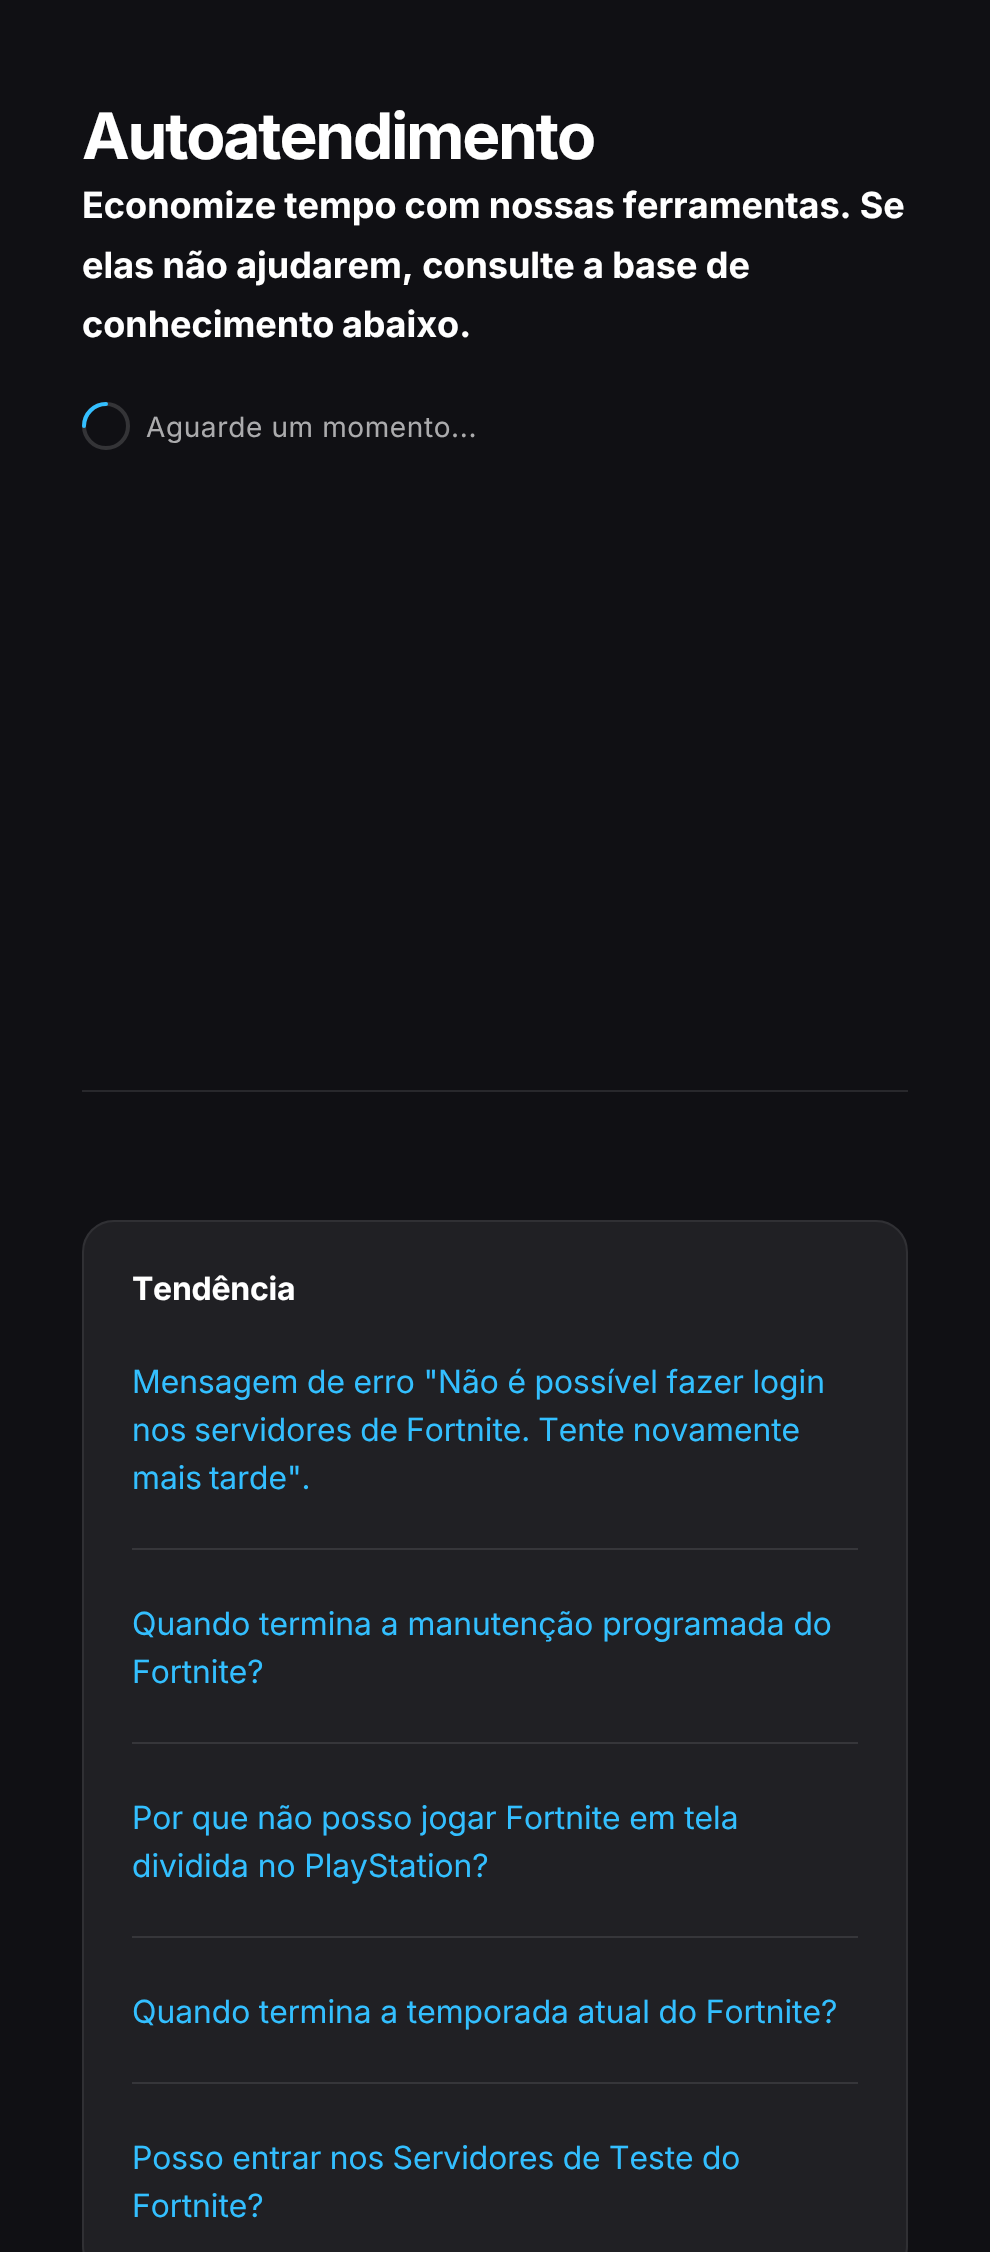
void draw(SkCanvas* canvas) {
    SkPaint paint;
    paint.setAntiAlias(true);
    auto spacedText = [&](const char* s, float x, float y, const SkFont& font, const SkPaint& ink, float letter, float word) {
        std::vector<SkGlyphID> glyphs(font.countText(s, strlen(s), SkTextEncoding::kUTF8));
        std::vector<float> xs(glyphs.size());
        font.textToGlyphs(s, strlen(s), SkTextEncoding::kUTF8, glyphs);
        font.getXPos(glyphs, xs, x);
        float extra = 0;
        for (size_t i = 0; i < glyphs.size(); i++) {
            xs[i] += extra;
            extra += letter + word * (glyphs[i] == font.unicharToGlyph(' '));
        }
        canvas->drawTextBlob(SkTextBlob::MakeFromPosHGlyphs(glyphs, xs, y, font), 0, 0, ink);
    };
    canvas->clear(0xFF101014);
    SkFont font1(fontMgr->matchFamilyStyle("Inter", SkFontStyle::Bold()), 64);
    font1.setSubpixel(true);
    paint.setColor(0xFFFFFFFF);
    spacedText("Autoatendimento", 82, 159, font1, paint, -2.25f, 0);
    SkFont font2(fontMgr->matchFamilyStyle("Inter", SkFontStyle::Bold()), 36);
    font2.setSubpixel(true);
    spacedText("Economize tempo com nossas ferramentas. Se", 82, 218, font2, paint, 0, -0.5f);
    spacedText("elas não ajudarem, consulte a base de", 82, 278, font2, paint, 0, -0.25f);
    spacedText("conhecimento abaixo.", 82, 337, font2, paint, 0, -1);
    paint.setStyle(SkPaint::kStroke_Style);
    paint.setStrokeWidth(4);
    paint.setColor(0xFF343437);
    canvas->drawCircle(106, 426, 22, paint);
    paint.setStrokeCap(SkPaint::kRound_Cap);
    paint.setColor(0xFF33BFFF);
    canvas->drawPath(SkPathBuilder().moveTo(84, 426).cubicTo(84, 414, 94, 404, 106, 404).detach(), paint);
    SkFont font3(fontMgr->matchFamilyStyle("Inter", SkFontStyle::Normal()), 28);
    font3.setSubpixel(true);
    paint.setStyle(SkPaint::kFill_Style);
    paint.setColor(0xFFABABAD);
    spacedText("Aguarde um momento...", 146, 437, font3, paint, 0.6f, 0);
    paint.setColor(0xFF28282C);
    canvas->drawRect(SkRect::MakeXYWH(82, 1090, 826, 2), paint);
    paint.setColor(0xFF202024);
    canvas->drawRoundRect(SkRect::MakeXYWH(83, 1221, 824, 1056), 31, 31, paint);
    paint.setStyle(SkPaint::kStroke_Style);
    paint.setStrokeWidth(2);
    paint.setStrokeCap(SkPaint::kButt_Cap);
    paint.setColor(0xFF303034);
    canvas->drawRoundRect(SkRect::MakeXYWH(83, 1221, 824, 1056), 31, 31, paint);
    SkFont font4(fontMgr->matchFamilyStyle("Inter", SkFontStyle::Bold()), 32);
    font4.setSubpixel(true);
    paint.setStyle(SkPaint::kFill_Style);
    paint.setColor(0xFFFFFFFF);
    spacedText("Tendência", 132, 1300, font4, paint, -0.25f, 0);
    SkFont font5(fontMgr->matchFamilyStyle("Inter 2", SkFontStyle::Normal()), 32);
    font5.setSubpixel(true);
    paint.setColor(0xFF33BFFF);
    spacedText("Mensagem de erro \"Não é possível fazer login", 132, 1393, font5, paint, 0, -0.25f);
    spacedText("nos servidores de Fortnite. Tente novamente", 132, 1441, font5, paint, 0, -1);
    spacedText("mais tarde\".", 132, 1489, font5, paint, 0, -2);
    paint.setColor(0xFF36363A);
    canvas->drawRect(SkRect::MakeXYWH(132, 1548, 726, 2), paint);
    paint.setColor(0xFF33BFFF);
    canvas->drawString("Quando termina a manutenção programada do", 132, 1635, font5, paint);
    canvas->drawString("Fortnite?", 132, 1683, font5, paint);
    paint.setColor(0xFF36363A);
    canvas->drawRect(SkRect::MakeXYWH(132, 1742, 726, 2), paint);
    paint.setColor(0xFF33BFFF);
    spacedText("Por que não posso jogar Fortnite em tela", 132, 1829, font5, paint, 0, -0.25f);
    canvas->drawString("dividida no PlayStation?", 132, 1877, font5, paint);
    paint.setColor(0xFF36363A);
    canvas->drawRect(SkRect::MakeXYWH(132, 1936, 726, 2), paint);
    paint.setColor(0xFF33BFFF);
    spacedText("Quando termina a temporada atual do Fortnite?", 132, 2023, font5, paint, 0, -0.25f);
    paint.setColor(0xFF36363A);
    canvas->drawRect(SkRect::MakeXYWH(132, 2082, 726, 2), paint);
    paint.setColor(0xFF33BFFF);
    spacedText("Posso entrar nos Servidores de Teste do", 132, 2169, font5, paint, 0, -0.5f);
    canvas->drawString("Fortnite?", 132, 2217, font5, paint);
}
